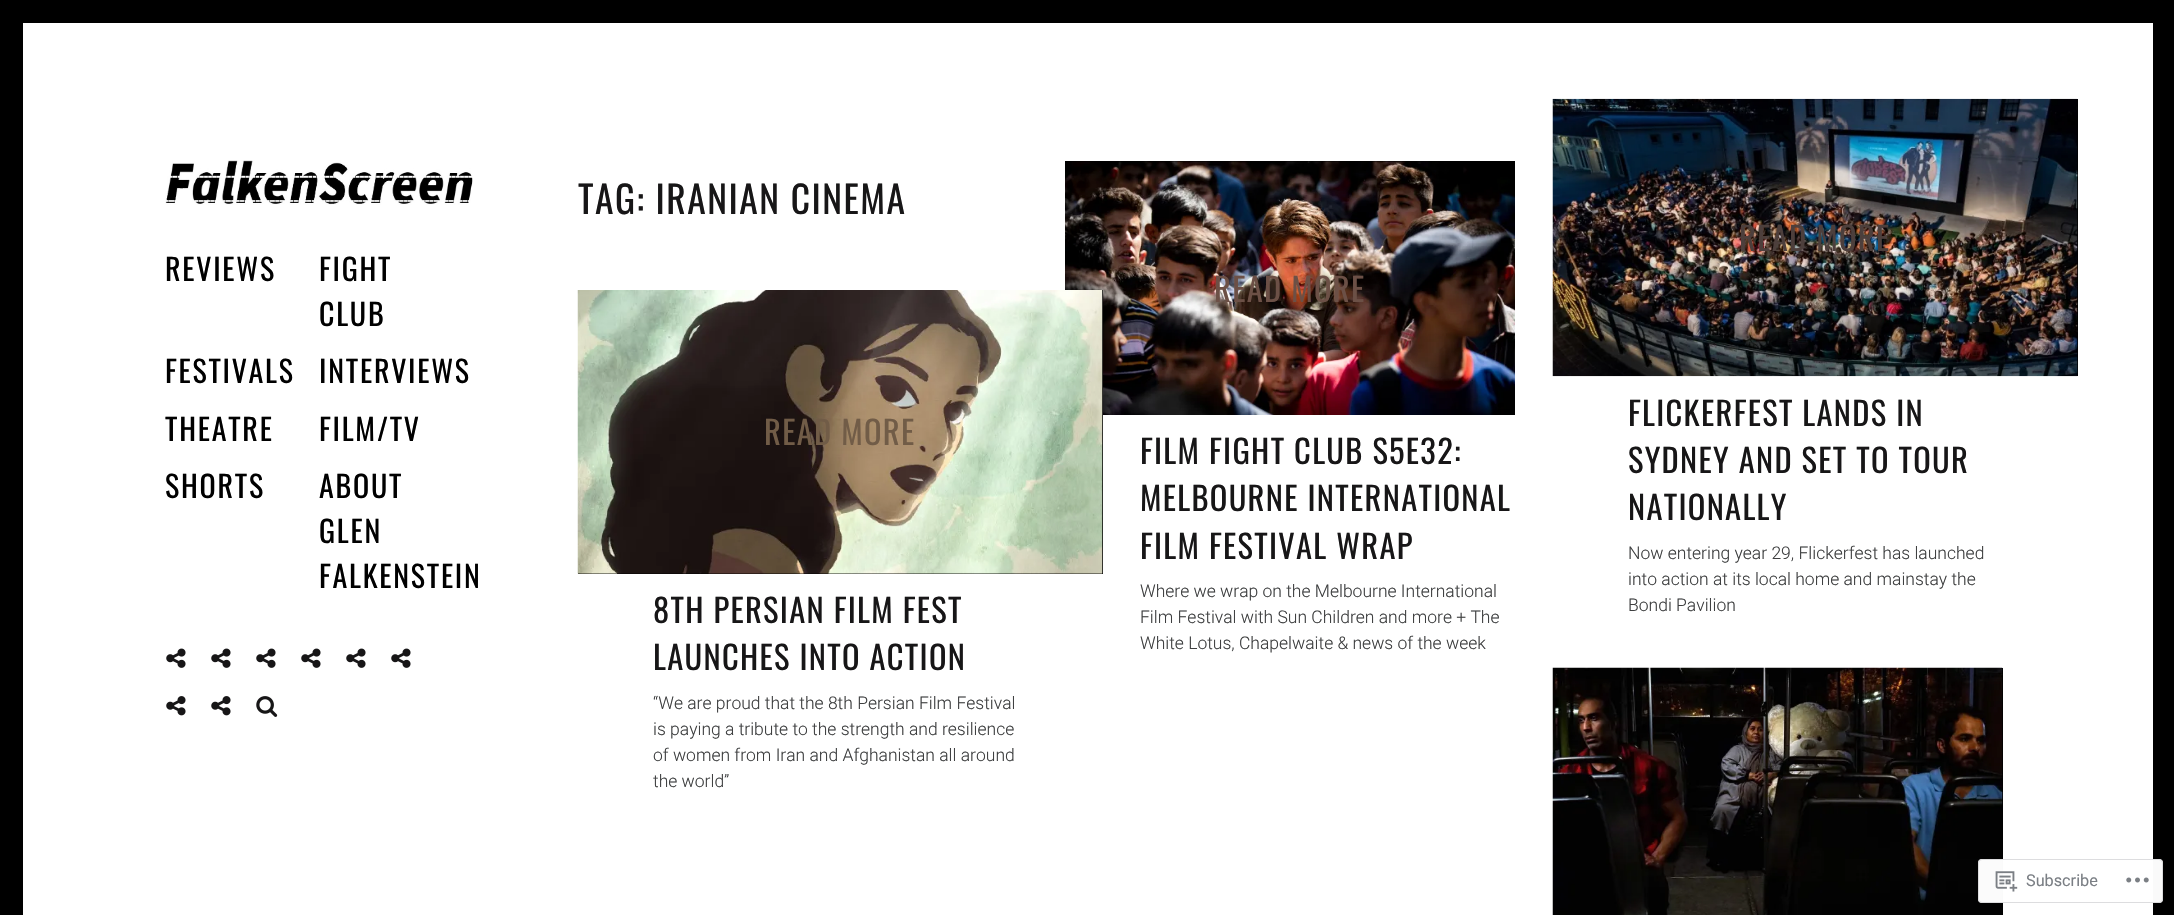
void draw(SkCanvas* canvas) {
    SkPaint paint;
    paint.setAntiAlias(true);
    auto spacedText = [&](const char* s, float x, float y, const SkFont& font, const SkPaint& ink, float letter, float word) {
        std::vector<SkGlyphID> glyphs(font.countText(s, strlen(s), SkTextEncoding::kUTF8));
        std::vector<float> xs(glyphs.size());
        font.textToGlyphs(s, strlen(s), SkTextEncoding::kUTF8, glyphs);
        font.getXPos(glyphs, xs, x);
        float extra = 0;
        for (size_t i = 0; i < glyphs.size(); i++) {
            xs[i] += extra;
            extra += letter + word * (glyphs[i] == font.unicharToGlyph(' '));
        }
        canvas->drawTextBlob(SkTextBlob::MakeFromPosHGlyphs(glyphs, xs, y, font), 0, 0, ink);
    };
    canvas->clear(0xFFFFFFFF);
    paint.setColor(0xFF000000);
    canvas->drawRect(SkRect::MakeXYWH(23, 0, 2130, 23), paint);
    canvas->drawRect(SkRect::MakeXYWH(2153, 0, 21, 915), paint);
    canvas->drawRect(SkRect::MakeXYWH(0, 0, 23, 915), paint);
    SkFont font1(fontMgr->matchFamilyStyle("Oswald", SkFontStyle::Normal()), 37.5f);
    font1.setSubpixel(true);
    paint.setColor(0xFF171617);
    spacedText("TAG: IRANIAN CINEMA", 578, 214, font1, paint, 1.5f, 0);
    canvas->drawImageRect(SkImages::DeferredFromEncodedData(SkData::MakeFromFileName("img1.png")), SkRect::MakeXYWH(165, 160, 308, 45), SkSamplingOptions());
    SkFont font2(fontMgr->matchFamilyStyle("Oswald", SkFontStyle::Normal()), 30);
    font2.setSubpixel(true);
    paint.setColor(0xFF000000);
    spacedText("REVIEWS", 165, 281, font2, paint, 1.75f, 0);
    spacedText("FIGHT", 319, 281, font2, paint, 1.75f, 0);
    spacedText("CLUB", 319, 326, font2, paint, 1.75f, 0);
    spacedText("FESTIVALS", 165, 383, font2, paint, 1.75f, 0);
    spacedText("INTERVIEWS", 319, 383, font2, paint, 1.75f, 0);
    spacedText("THEATRE", 165, 441, font2, paint, 1.75f, 0);
    spacedText("FILM/TV", 319, 441, font2, paint, 1.75f, 0);
    spacedText("SHORTS", 165, 498, font2, paint, 1.75f, 0);
    spacedText("ABOUT", 319, 498, font2, paint, 1.75f, 0);
    spacedText("GLEN", 319, 543, font2, paint, 1.75f, 0);
    spacedText("FALKENSTEIN", 319, 588, font2, paint, 1.75f, 0);
    canvas->drawImageRect(SkImages::DeferredFromEncodedData(SkData::MakeFromFileName("img2.png")), SkRect::MakeXYWH(166, 648, 20, 20), SkSamplingOptions());
    canvas->drawImageRect(SkImages::DeferredFromEncodedData(SkData::MakeFromFileName("img2.png")), SkRect::MakeXYWH(211, 648, 20, 20), SkSamplingOptions());
    canvas->drawImageRect(SkImages::DeferredFromEncodedData(SkData::MakeFromFileName("img2.png")), SkRect::MakeXYWH(256, 648, 20, 20), SkSamplingOptions());
    canvas->drawImageRect(SkImages::DeferredFromEncodedData(SkData::MakeFromFileName("img2.png")), SkRect::MakeXYWH(301, 648, 20, 20), SkSamplingOptions());
    canvas->drawImageRect(SkImages::DeferredFromEncodedData(SkData::MakeFromFileName("img2.png")), SkRect::MakeXYWH(346, 648, 20, 20), SkSamplingOptions());
    canvas->drawImageRect(SkImages::DeferredFromEncodedData(SkData::MakeFromFileName("img2.png")), SkRect::MakeXYWH(391, 648, 20, 20), SkSamplingOptions());
    canvas->drawImageRect(SkImages::DeferredFromEncodedData(SkData::MakeFromFileName("img3.png")), SkRect::MakeXYWH(166, 696, 20, 20), SkSamplingOptions());
    canvas->drawImageRect(SkImages::DeferredFromEncodedData(SkData::MakeFromFileName("img3.png")), SkRect::MakeXYWH(211, 696, 20, 20), SkSamplingOptions());
    canvas->drawImageRect(SkImages::DeferredFromEncodedData(SkData::MakeFromFileName("img4.png")), SkRect::MakeXYWH(256, 696, 22, 21), SkSamplingOptions());
    canvas->drawRect(SkRect::MakeXYWH(1065, 161, 450, 1), paint);
    canvas->drawImageRect(SkImages::DeferredFromEncodedData(SkData::MakeFromFileName("img6.png")), SkRect::MakeXYWH(1065, 161, 450, 254), SkSamplingOptions());
    canvas->save();
    canvas->clipRect(SkRect::MakeXYWH(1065, 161, 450, 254));
    paint.setMaskFilter(SkMaskFilter::MakeBlur(kNormal_SkBlurStyle, 15.5f));
    canvas->drawRect(SkRect::MakeXYWH(576, 290, 525, 284), paint);
    paint.setMaskFilter(nullptr);
    canvas->restore();
    canvas->drawRect(SkRect::MakeXYWH(578, 290, 525, 284), paint);
    canvas->drawImageRect(SkImages::DeferredFromEncodedData(SkData::MakeFromFileName("img5.png")), SkRect::MakeXYWH(577, 290, 526, 284), SkSamplingOptions());
    SkFont font3(fontMgr->matchFamilyStyle("Oswald", SkFontStyle::Normal()), 32.5f);
    font3.setSubpixel(true);
    paint.setColor(0xFF715C47);
    spacedText("READ MORE", 764, 445, font3, paint, 1.3f, 0);
    paint.setColor(0xFF171617);
    spacedText("8TH PERSIAN FILM FEST", 653, 623, font3, paint, 1.3f, 0);
    spacedText("LAUNCHES INTO ACTION", 653, 670, font3, paint, 1.3f, 0);
    SkFont font4(fontMgr->matchFamilyStyle("Roboto", SkFontStyle(300, SkFontStyle::kNormal_Width, SkFontStyle::kUpright_Slant)), 17.5f);
    font4.setSubpixel(true);
    paint.setColor(0xFF3E3F40);
    canvas->drawString("“We are proud that the 8th Persian Film Festival", 653, 709, font4, paint);
    canvas->drawString("is paying a tribute to the strength and resilience", 653, 735, font4, paint);
    canvas->drawString("of women from Iran and Afghanistan all around", 653, 761, font4, paint);
    canvas->drawString("the world”", 653, 787, font4, paint);
    paint.setColor(0xFF6C5046);
    spacedText("READ MORE", 1214, 302, font3, paint, 1.3f, 0);
    paint.setColor(0xFF171617);
    spacedText("FILM FIGHT CLUB S5E32:", 1140, 464, font3, paint, 1.3f, 0);
    spacedText("MELBOURNE INTERNATIONAL", 1140, 511, font3, paint, 1.3f, 0);
    spacedText("FILM FESTIVAL WRAP", 1140, 559, font3, paint, 1.3f, 0);
    paint.setColor(0xFF3E3F40);
    canvas->drawString("Where we wrap on the Melbourne International", 1140, 597, font4, paint);
    canvas->drawString("Film Festival with Sun Children and more + The", 1140, 623, font4, paint);
    canvas->drawString("White Lotus, Chapelwaite & news of the week", 1140, 649, font4, paint);
    paint.setColor(0xFF000000);
    canvas->drawRect(SkRect::MakeXYWH(2077, 99, 1, 277), paint);
    canvas->drawImageRect(SkImages::DeferredFromEncodedData(SkData::MakeFromFileName("img7.png")), SkRect::MakeXYWH(1552, 98, 526, 279), SkSamplingOptions());
    paint.setColor(0xFF4D3F3C);
    spacedText("READ MORE", 1739, 251, font3, paint, 1.3f, 0);
    paint.setColor(0xFF171617);
    spacedText("FLICKERFEST LANDS IN", 1628, 426, font3, paint, 1.3f, 0);
    spacedText("SYDNEY AND SET TO TOUR", 1628, 473, font3, paint, 1.3f, 0);
    spacedText("NATIONALLY", 1628, 520, font3, paint, 1.3f, 0);
    paint.setColor(0xFF3E3F40);
    canvas->drawString("Now entering year 29, Flickerfest has launched", 1628, 559, font4, paint);
    canvas->drawString("into action at its local home and mainstay the", 1628, 585, font4, paint);
    canvas->drawString("Bondi Pavilion", 1628, 611, font4, paint);
    paint.setColor(0xFF000000);
    canvas->drawRect(SkRect::MakeXYWH(2002, 668, 1, 247), paint);
    canvas->drawImageRect(SkImages::DeferredFromEncodedData(SkData::MakeFromFileName("img8.png")), SkRect::MakeXYWH(1552, 667, 451, 248), SkSamplingOptions());
    paint.setColor(0xFAFFFFFF);
    canvas->drawRoundRect(SkRect::MakeXYWH(1978, 859, 185, 44), 4, 4, paint);
    paint.setStyle(SkPaint::kStroke_Style);
    paint.setStrokeWidth(1);
    paint.setColor(0xFADCDCDE);
    canvas->drawRoundRect(SkRect::MakeXYWH(1978.5f, 859.5f, 184, 43), 3.5f, 3.5f, paint);
    canvas->drawImageRect(SkImages::DeferredFromEncodedData(SkData::MakeFromFileName("img9.png")), SkRect::MakeXYWH(1995, 871, 23, 21), SkSamplingOptions());
    SkFont font5(fontMgr->matchFamilyStyle("Roboto", SkFontStyle::Normal()), 16.25f);
    font5.setSubpixel(true);
    paint.setStyle(SkPaint::kFill_Style);
    paint.setColor(0xFF7B7F85);
    canvas->drawString("Subscribe", 2026, 886, font5, paint);
    canvas->drawImageRect(SkImages::DeferredFromEncodedData(SkData::MakeFromFileName("img10.png")), SkRect::MakeXYWH(2126, 877, 23, 6), SkSamplingOptions());
}
